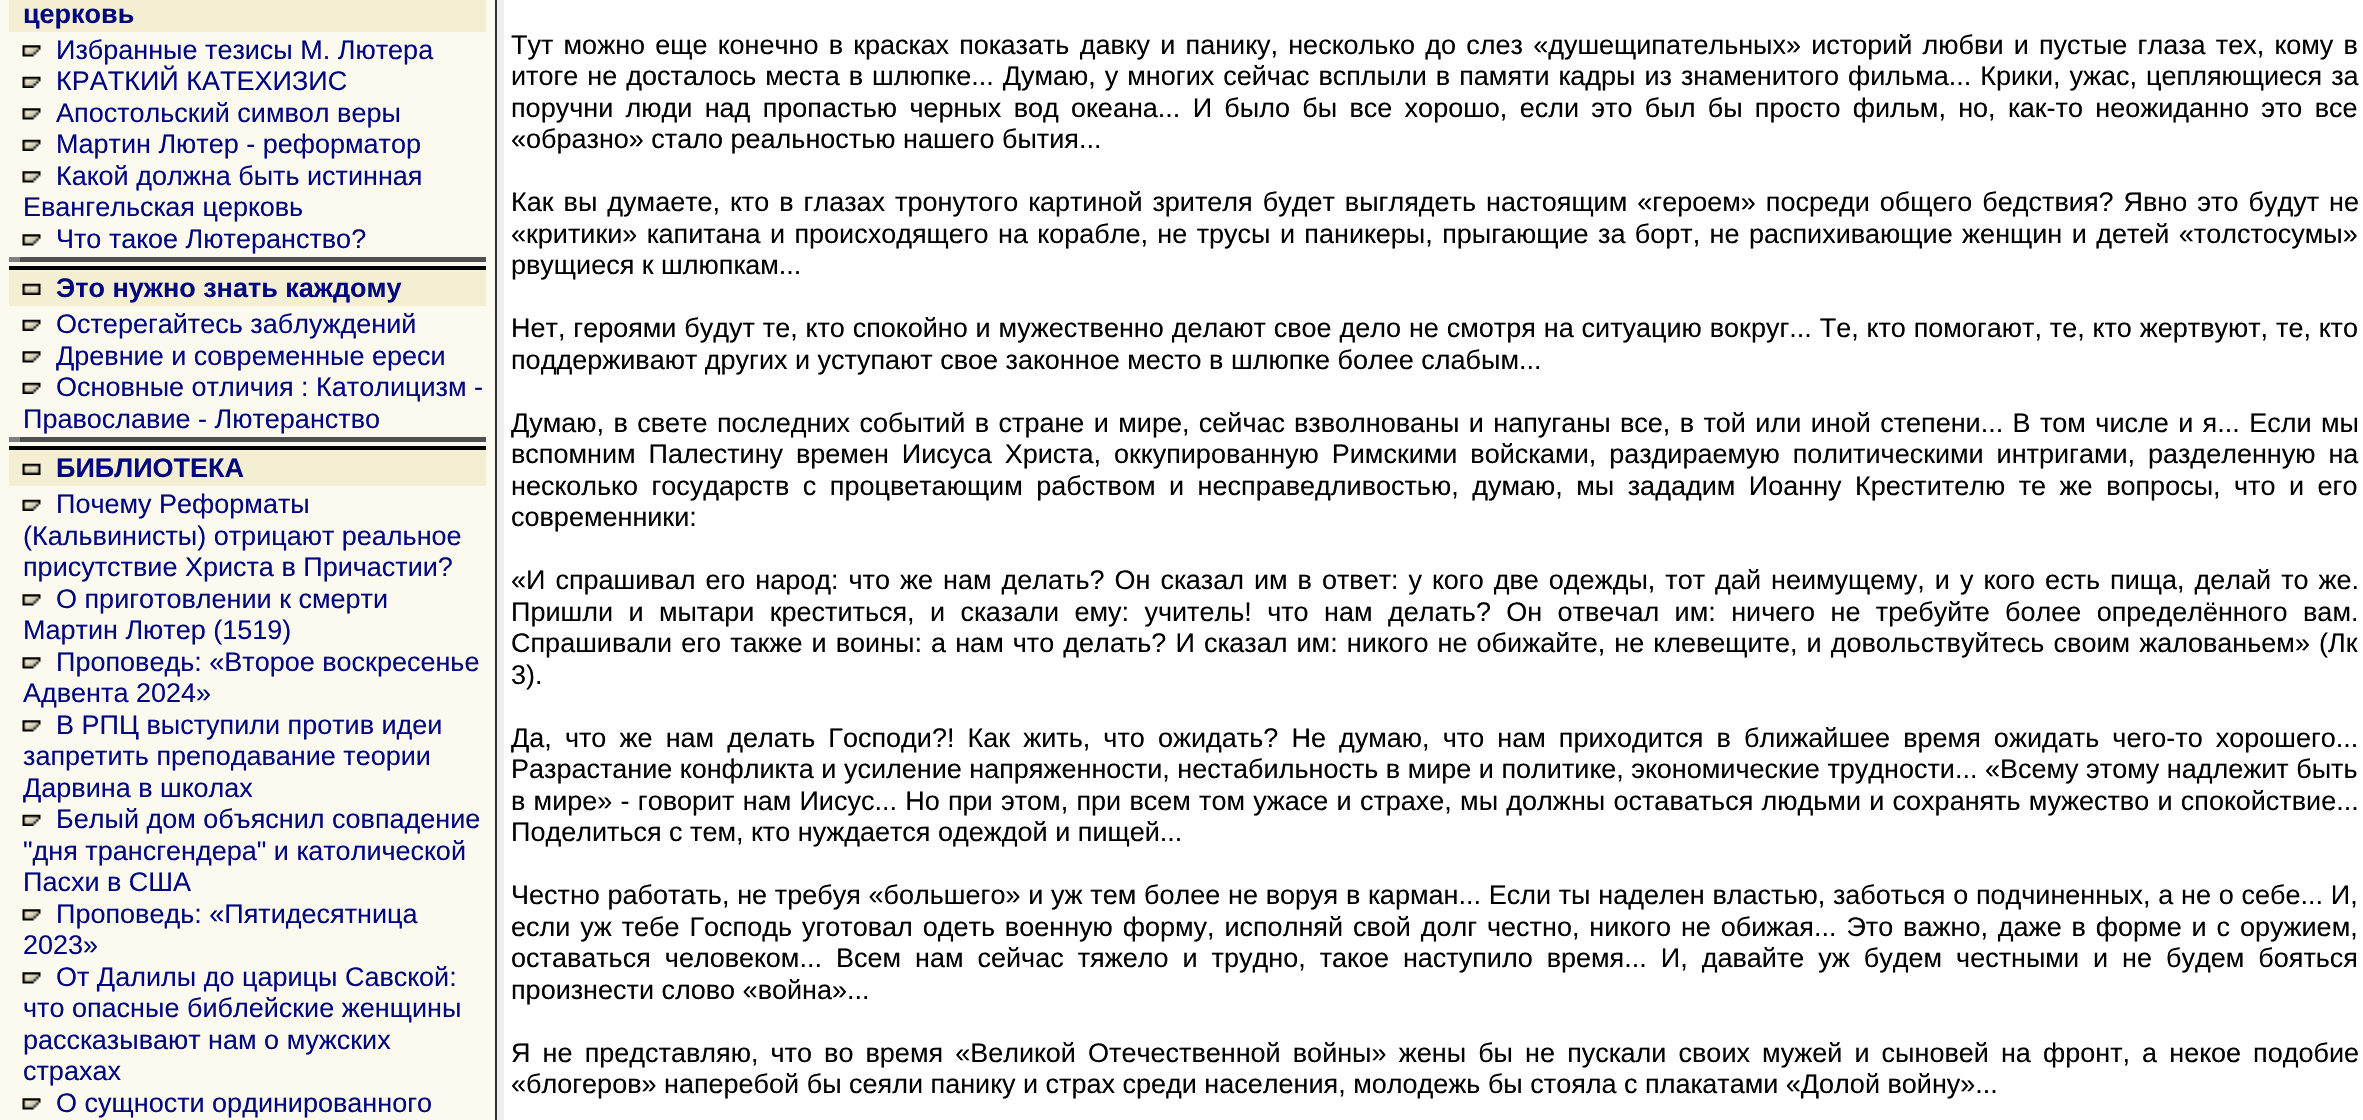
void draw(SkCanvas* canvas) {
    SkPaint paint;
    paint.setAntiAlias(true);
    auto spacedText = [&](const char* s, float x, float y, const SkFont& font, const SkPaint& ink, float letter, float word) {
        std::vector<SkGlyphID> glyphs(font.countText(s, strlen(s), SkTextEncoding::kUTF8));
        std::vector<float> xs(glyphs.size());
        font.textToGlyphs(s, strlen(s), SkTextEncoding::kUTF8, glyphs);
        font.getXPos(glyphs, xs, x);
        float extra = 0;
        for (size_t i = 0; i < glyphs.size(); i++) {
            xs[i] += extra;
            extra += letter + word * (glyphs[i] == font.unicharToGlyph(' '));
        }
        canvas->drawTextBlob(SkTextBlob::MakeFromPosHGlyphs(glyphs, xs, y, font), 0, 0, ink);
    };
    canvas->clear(0xFFFFFFFF);
    paint.setColor(0xFFFCF9EE);
    canvas->drawRect(SkRect::MakeXYWH(0, 0, 495, 1120), paint);
    paint.setColor(0xFFF4EED3);
    canvas->drawRect(SkRect::MakeXYWH(9, 0, 477, 32), paint);
    SkFont font1(fontMgr->matchFamilyStyle("Liberation Sans", SkFontStyle::Bold()), 27);
    font1.setSubpixel(true);
    paint.setColor(0xFF00077F);
    canvas->drawString("церковь", 23, 23, font1, paint);
    canvas->drawImageRect(SkImages::DeferredFromEncodedData(SkData::MakeFromFileName("img1.png")), SkRect::MakeXYWH(22, 45, 19, 12), SkSamplingOptions());
    SkFont font2(fontMgr->matchFamilyStyle("Liberation Sans", SkFontStyle::Normal()), 27);
    font2.setSubpixel(true);
    canvas->drawString("Избранные тезисы М. Лютера", 56, 59, font2, paint);
    canvas->drawImageRect(SkImages::DeferredFromEncodedData(SkData::MakeFromFileName("img2.png")), SkRect::MakeXYWH(22, 76, 19, 12), SkSamplingOptions());
    canvas->drawString("КРАТКИЙ КАТЕХИЗИС", 56, 90, font2, paint);
    canvas->drawImageRect(SkImages::DeferredFromEncodedData(SkData::MakeFromFileName("img1.png")), SkRect::MakeXYWH(22, 108, 19, 12), SkSamplingOptions());
    canvas->drawString("Апостольский символ веры", 56, 122, font2, paint);
    canvas->drawImageRect(SkImages::DeferredFromEncodedData(SkData::MakeFromFileName("img2.png")), SkRect::MakeXYWH(22, 139, 19, 12), SkSamplingOptions());
    canvas->drawString("Мартин Лютер - реформатор", 56, 153, font2, paint);
    canvas->drawImageRect(SkImages::DeferredFromEncodedData(SkData::MakeFromFileName("img1.png")), SkRect::MakeXYWH(22, 171, 19, 12), SkSamplingOptions());
    canvas->drawString("Какой должна быть истинная", 56, 185, font2, paint);
    canvas->drawString("Евангельская церковь", 23, 216, font2, paint);
    canvas->drawImageRect(SkImages::DeferredFromEncodedData(SkData::MakeFromFileName("img1.png")), SkRect::MakeXYWH(22, 234, 19, 12), SkSamplingOptions());
    canvas->drawString("Что такое Лютеранство?", 56, 248, font2, paint);
    paint.setColor(0xFF808080);
    canvas->drawRect(SkRect::MakeXYWH(9, 257, 11, 5), paint);
    paint.setColor(0xFF505050);
    canvas->drawRect(SkRect::MakeXYWH(20, 257, 466, 5), paint);
    paint.setColor(0xFF000000);
    canvas->drawRect(SkRect::MakeXYWH(9, 266, 477, 4), paint);
    paint.setColor(0xFFF4EED3);
    canvas->drawRect(SkRect::MakeXYWH(9, 270, 477, 36), paint);
    canvas->drawImageRect(SkImages::DeferredFromEncodedData(SkData::MakeFromFileName("img3.png")), SkRect::MakeXYWH(22, 283, 19, 12), SkSamplingOptions());
    paint.setColor(0xFF00077F);
    canvas->drawString("Это нужно знать каждому", 56, 297, font1, paint);
    canvas->drawImageRect(SkImages::DeferredFromEncodedData(SkData::MakeFromFileName("img2.png")), SkRect::MakeXYWH(22, 319, 19, 12), SkSamplingOptions());
    canvas->drawString("Остерегайтесь заблуждений", 56, 333, font2, paint);
    canvas->drawImageRect(SkImages::DeferredFromEncodedData(SkData::MakeFromFileName("img1.png")), SkRect::MakeXYWH(22, 351, 19, 12), SkSamplingOptions());
    canvas->drawString("Древние и современные ереси", 56, 365, font2, paint);
    canvas->drawImageRect(SkImages::DeferredFromEncodedData(SkData::MakeFromFileName("img2.png")), SkRect::MakeXYWH(22, 382, 19, 12), SkSamplingOptions());
    canvas->drawString("Основные отличия : Католицизм -", 56, 396, font2, paint);
    canvas->drawString("Православие - Лютеранство", 23, 428, font2, paint);
    paint.setColor(0xFF808080);
    canvas->drawRect(SkRect::MakeXYWH(9, 437, 11, 5), paint);
    paint.setColor(0xFF505050);
    canvas->drawRect(SkRect::MakeXYWH(20, 437, 466, 5), paint);
    paint.setColor(0xFF000000);
    canvas->drawRect(SkRect::MakeXYWH(9, 446, 477, 4), paint);
    paint.setColor(0xFFF4EED3);
    canvas->drawRect(SkRect::MakeXYWH(9, 450, 477, 36), paint);
    canvas->drawImageRect(SkImages::DeferredFromEncodedData(SkData::MakeFromFileName("img3.png")), SkRect::MakeXYWH(22, 463, 19, 12), SkSamplingOptions());
    paint.setColor(0xFF00077F);
    canvas->drawString("БИБЛИОТЕКА", 56, 477, font1, paint);
    canvas->drawImageRect(SkImages::DeferredFromEncodedData(SkData::MakeFromFileName("img2.png")), SkRect::MakeXYWH(22, 499, 19, 12), SkSamplingOptions());
    canvas->drawString("Почему Реформаты", 56, 513, font2, paint);
    canvas->drawString("(Кальвинисты) отрицают реальное", 23, 545, font2, paint);
    canvas->drawString("присутствие Христа в Причастии?", 23, 576, font2, paint);
    canvas->drawImageRect(SkImages::DeferredFromEncodedData(SkData::MakeFromFileName("img1.png")), SkRect::MakeXYWH(22, 594, 19, 12), SkSamplingOptions());
    canvas->drawString("О приготовлении к смерти", 56, 608, font2, paint);
    canvas->drawString("Мартин Лютер (1519)", 23, 639, font2, paint);
    canvas->drawImageRect(SkImages::DeferredFromEncodedData(SkData::MakeFromFileName("img1.png")), SkRect::MakeXYWH(22, 657, 19, 12), SkSamplingOptions());
    canvas->drawString("Проповедь: «Второе воскресенье", 56, 671, font2, paint);
    canvas->drawString("Адвента 2024»", 23, 702, font2, paint);
    canvas->drawImageRect(SkImages::DeferredFromEncodedData(SkData::MakeFromFileName("img1.png")), SkRect::MakeXYWH(22, 720, 19, 12), SkSamplingOptions());
    canvas->drawString("В РПЦ выступили против идеи", 56, 734, font2, paint);
    canvas->drawString("запретить преподавание теории", 23, 765, font2, paint);
    canvas->drawString("Дарвина в школах", 23, 797, font2, paint);
    canvas->drawImageRect(SkImages::DeferredFromEncodedData(SkData::MakeFromFileName("img2.png")), SkRect::MakeXYWH(22, 814, 19, 12), SkSamplingOptions());
    canvas->drawString("Белый дом объяснил совпадение", 56, 828, font2, paint);
    canvas->drawString("\"дня трансгендера\" и католической", 23, 860, font2, paint);
    canvas->drawString("Пасхи в США", 23, 891, font2, paint);
    canvas->drawImageRect(SkImages::DeferredFromEncodedData(SkData::MakeFromFileName("img1.png")), SkRect::MakeXYWH(22, 909, 19, 12), SkSamplingOptions());
    canvas->drawString("Проповедь: «Пятидесятница", 56, 923, font2, paint);
    canvas->drawString("2023»", 23, 954, font2, paint);
    canvas->drawImageRect(SkImages::DeferredFromEncodedData(SkData::MakeFromFileName("img1.png")), SkRect::MakeXYWH(22, 972, 19, 12), SkSamplingOptions());
    canvas->drawString("От Далилы до царицы Савской:", 56, 986, font2, paint);
    canvas->drawString("что опасные библейские женщины", 23, 1017, font2, paint);
    canvas->drawString("рассказывают нам о мужских", 23, 1049, font2, paint);
    canvas->drawString("страхах", 23, 1080, font2, paint);
    canvas->drawImageRect(SkImages::DeferredFromEncodedData(SkData::MakeFromFileName("img1.png")), SkRect::MakeXYWH(22, 1098, 19, 12), SkSamplingOptions());
    canvas->drawString("О сущности ординированного", 56, 1112, font2, paint);
    paint.setColor(0xFF303030);
    canvas->drawRect(SkRect::MakeXYWH(495, 0, 2, 1120), paint);
    paint.setColor(0xFFEFEFEF);
    canvas->drawRect(SkRect::MakeXYWH(497, 0, 7, 1120), paint);
    paint.setColor(0xFF000000);
    spacedText("Тут можно еще конечно в красках показать давку и панику, несколько до слез «душещипательных» историй любви и пустые глаза тех, кому в", 511, 54, font2, paint, 0, 2.7f);
    spacedText("итоге не досталось места в шлюпке... Думаю, у многих сейчас всплыли в памяти кадры из знаменитого фильма... Крики, ужас, цепляющиеся за", 511, 85, font2, paint, 0, 1.5f);
    spacedText("поручни люди над пропастью черных вод океана... И было бы все хорошо, если это был бы просто фильм, но, как-то неожиданно это все", 511, 117, font2, paint, 0, 4.8f);
    canvas->drawString("«образно» стало реальностью нашего бытия...", 511, 148, font2, paint);
    spacedText("Как вы думаете, кто в глазах тронутого картиной зрителя будет выглядеть настоящим «героем» посреди общего бедствия? Явно это будут не", 511, 211, font2, paint, 0, 2.5f);
    spacedText("«критики» капитана и происходящего на корабле, не трусы и паникеры, прыгающие за борт, не распихивающие женщин и детей «толстосумы»", 511, 243, font2, paint, 0, 1.9f);
    canvas->drawString("рвущиеся к шлюпкам...", 511, 274, font2, paint);
    spacedText("Нет, героями будут те, кто спокойно и мужественно делают свое дело не смотря на ситуацию вокруг... Те, кто помогают, те, кто жертвуют, те, кто", 511, 337, font2, paint, 0, 0.4f);
    canvas->drawString("поддерживают других и уступают свое законное место в шлюпке более слабым...", 511, 369, font2, paint);
    spacedText("Думаю, в свете последних событий в стране и мире, сейчас", 511, 432, font2, paint, 0, 1.9f);
    spacedText("взволнованы и напуганы все, в той или иной степени... В том числе и я... Если мы", 1294, 432, font2, paint, 0, 1.9f);
    spacedText("вспомним Палестину времен Иисуса Христа, оккупированную Римскими войсками, раздираемую политическими интригами, разделенную на", 511, 463, font2, paint, 0, 5.4f);
    spacedText("несколько государств с процветающим рабством и несправедливостью, думаю, мы зададим Иоанну Крестителю те же вопросы, что и его", 511, 495, font2, paint, 0, 6);
    canvas->drawString("современники:", 511, 526, font2, paint);
    spacedText("«И спрашивал его народ: что же нам делать? Он сказал им в ответ: у кого две одежды, тот дай неимущему, и у кого есть пища, делай то же.", 511, 589, font2, paint, 0, 2.5f);
    spacedText("Пришли и мытари креститься, и сказали ему: учитель! что нам делать? Он отвечал им: ничего не требуйте более определённого вам.", 511, 621, font2, paint, 0, 7.9f);
    spacedText("Спрашивали его также и воины: а нам что делать? И сказал им: никого не обижайте, не клевещите, и довольствуйтесь своим жалованьем» (Лк", 511, 652, font2, paint, 0, 1.6f);
    canvas->drawString("3).", 511, 684, font2, paint);
    spacedText("Да, что же нам делать Господи?! Как жить, что ожидать? Не думаю, что нам приходится в ближайшее время ожидать чего-то хорошего...", 511, 747, font2, paint, 0, 5.6f);
    canvas->drawString("Разрастание конфликта и усиление напряженности, нестабильность в мире и политике, экономические трудности... «Всему этому надлежит быть", 511, 778, font2, paint);
    spacedText("в мире» - говорит нам Иисус... Но при этом, при всем том ужасе и страхе, мы должны оставаться людьми и сохранять мужество и спокойствие...", 511, 810, font2, paint, 0, 0.75f);
    canvas->drawString("Поделиться с тем, кто нуждается одеждой и пищей...", 511, 841, font2, paint);
    spacedText("Честно работать, не требуя «большего» и уж тем более не воруя в карман... Если ты наделен властью, заботься о подчиненных, а не о себе... И,", 511, 904, font2, paint, 0, 0.25f);
    spacedText("если уж тебе Господь уготовал одеть военную форму, исполняй свой долг честно, никого не обижая... Это важно, даже в форме и с оружием,", 511, 936, font2, paint, 0, 2.4f);
    spacedText("оставаться человеком... Всем нам сейчас тяжело и трудно, такое наступило время... И, давайте уж будем честными и не будем бояться", 511, 967, font2, paint, 0, 6.5f);
    canvas->drawString("произнести слово «война»...", 511, 999, font2, paint);
    spacedText("Я не представляю, что во время «Великой Отечественной войны» жены бы не пускали своих мужей и сыновей на фронт, а некое подобие", 511, 1062, font2, paint, 0, 4.6f);
    canvas->drawString("«блогеров» наперебой бы сеяли панику и страх среди населения, молодежь бы стояла с плакатами «Долой войну»...", 511, 1093, font2, paint);
}
